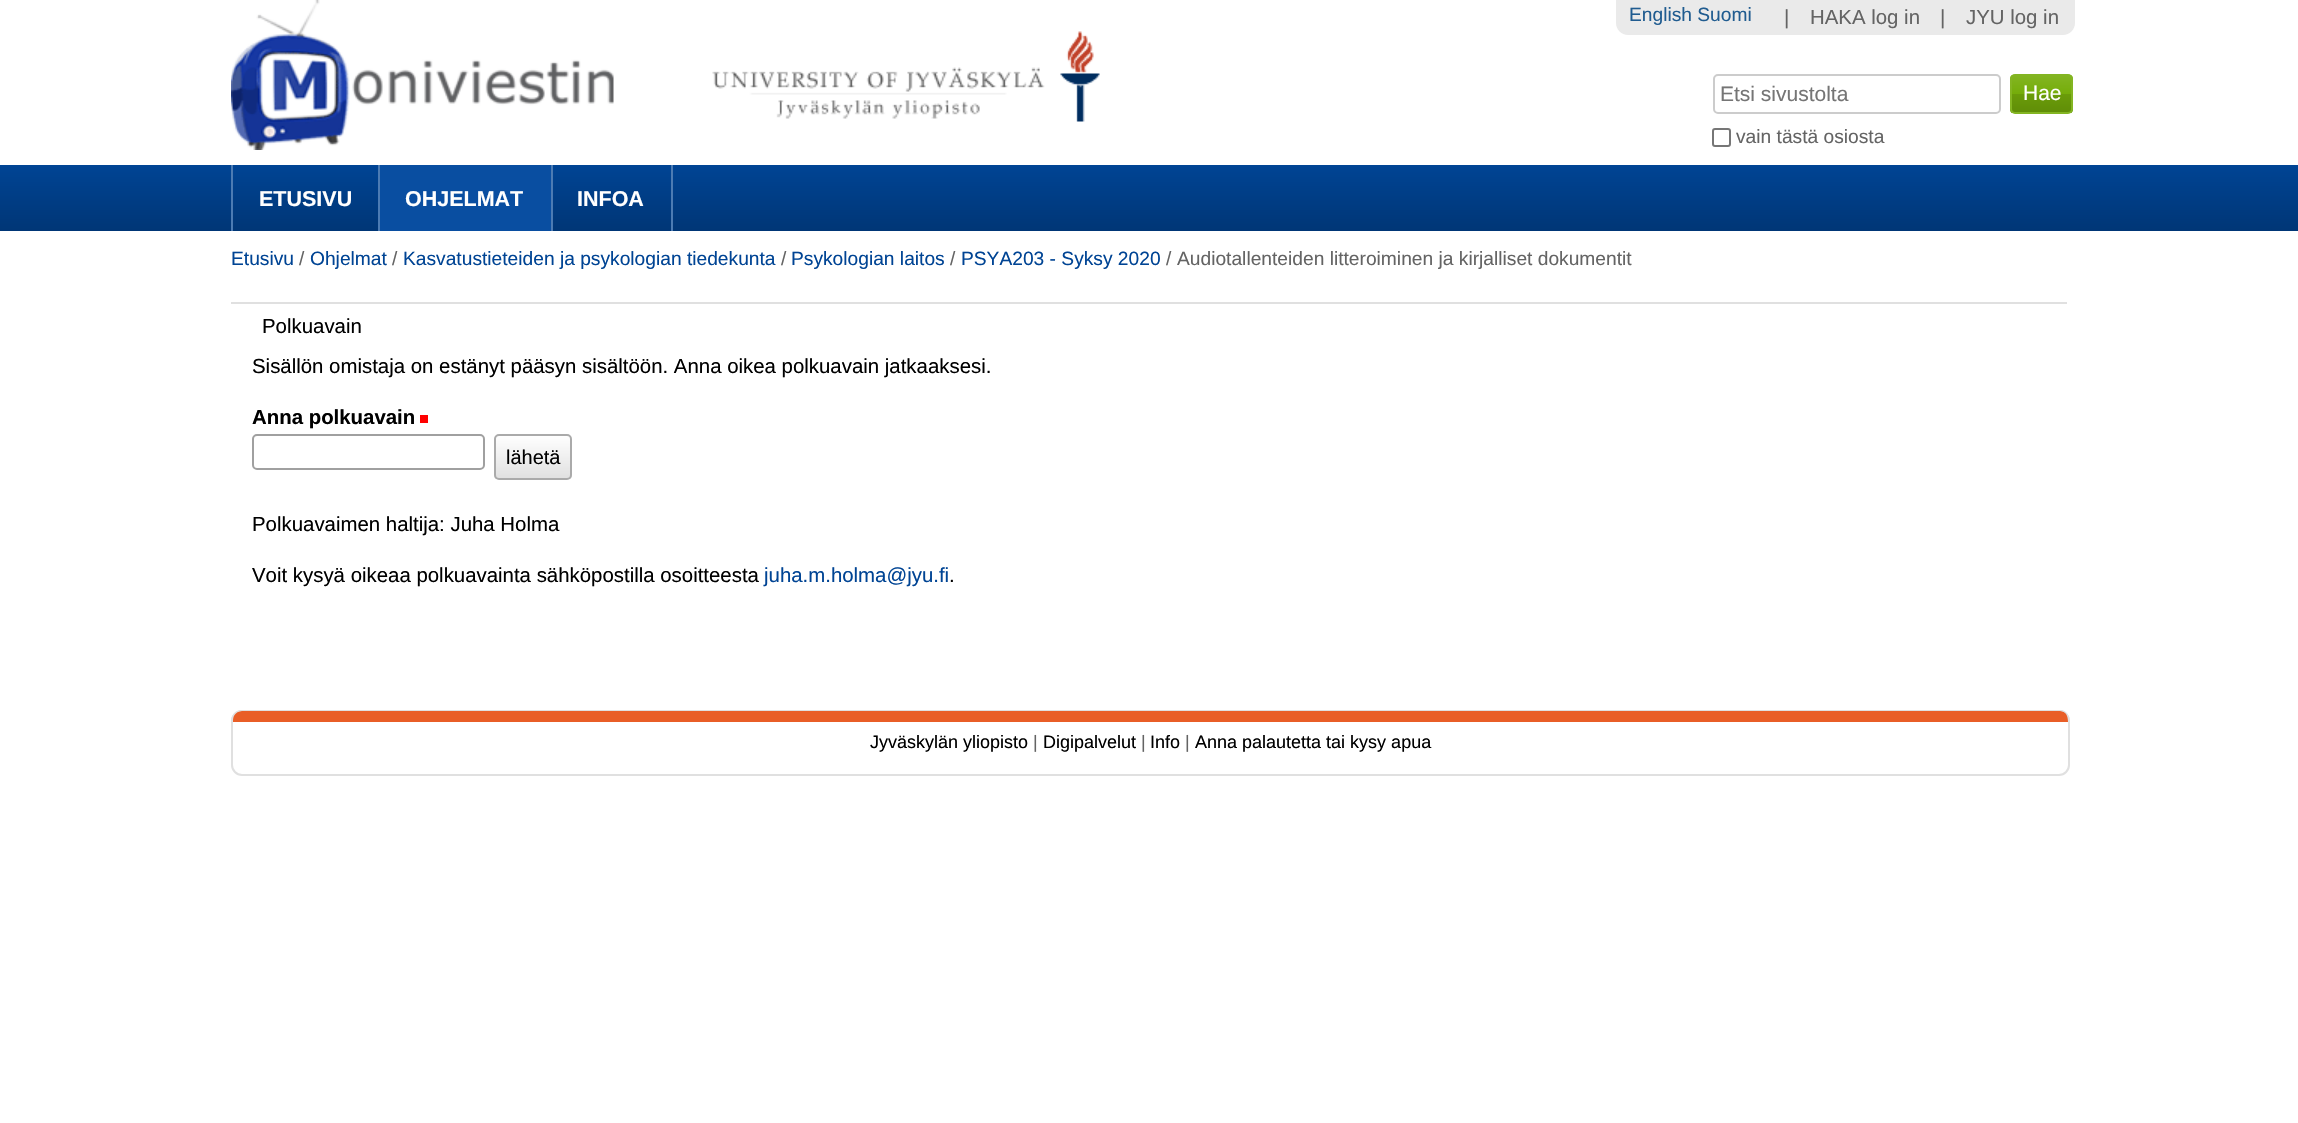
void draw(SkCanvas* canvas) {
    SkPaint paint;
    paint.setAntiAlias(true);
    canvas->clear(0xFFFFFFFF);
    canvas->drawImageRect(SkImages::DeferredFromEncodedData(SkData::MakeFromFileName("img1.png")), SkRect::MakeXYWH(231, 0, 869, 150), SkSamplingOptions());
    paint.setColor(0xFFEAEAEA);
    canvas->drawPath(SkPathBuilder().moveTo(1616, 0).lineTo(2075, 0).lineTo(2075, 23).cubicTo(2075, 29.5f, 2069.5f, 35, 2063, 35).lineTo(1628, 35).cubicTo(1621.5f, 35, 1616, 29.5f, 1616, 23).close().detach(), paint);
    SkFont font1(fontMgr->matchFamilyStyle("Liberation Sans", SkFontStyle::Normal()), 19.2f);
    font1.setSubpixel(true);
    paint.setColor(0xFF205C90);
    canvas->drawString("English Suomi", 1629, 21, font1, paint);
    SkFont font2(fontMgr->matchFamilyStyle("Liberation Sans", SkFontStyle::Normal()), 20.4f);
    font2.setSubpixel(true);
    paint.setColor(0xFF646464);
    canvas->drawString("|", 1784, 24, font2, paint);
    canvas->drawString("HAKA log in", 1810, 24, font2, paint);
    canvas->drawString("|", 1940, 24, font2, paint);
    canvas->drawString("JYU log in", 1966, 24, font2, paint);
    paint.setColor(0xFF004494);
    canvas->drawString("Etusivu", 231, 265, font1, paint);
    paint.setColor(0xFF646464);
    canvas->drawString("/", 299, 265, font1, paint);
    paint.setColor(0xFF004494);
    canvas->drawString("Ohjelmat", 310, 265, font1, paint);
    paint.setColor(0xFF646464);
    canvas->drawString("/", 392, 265, font1, paint);
    paint.setColor(0xFF004494);
    canvas->drawString("Kasvatustieteiden ja psykologian tiedekunta", 403, 265, font1, paint);
    paint.setColor(0xFF646464);
    canvas->drawString("/", 781, 265, font1, paint);
    paint.setColor(0xFF004494);
    canvas->drawString("Psykologian laitos", 791, 265, font1, paint);
    paint.setColor(0xFF646464);
    canvas->drawString("/", 950, 265, font1, paint);
    paint.setColor(0xFF004494);
    canvas->drawString("PSYA203 - Syksy 2020", 961, 265, font1, paint);
    paint.setColor(0xFF646464);
    canvas->drawString("/", 1166, 265, font1, paint);
    canvas->drawString("Audiotallenteiden litteroiminen ja kirjalliset dokumentit", 1177, 265, font1, paint);
    paint.setColor(0xFFE0E0E0);
    canvas->drawRect(SkRect::MakeXYWH(231, 302, 1836, 2), paint);
    paint.setColor(0xFF000000);
    canvas->drawString("Polkuavain", 262, 333, font2, paint);
    canvas->drawString("Sisällön omistaja on estänyt pääsyn sisältöön. Anna oikea polkuavain jatkaaksesi.", 252, 373, font2, paint);
    SkFont font3(fontMgr->matchFamilyStyle("Liberation Sans", SkFontStyle::Bold()), 20.4f);
    font3.setSubpixel(true);
    canvas->drawString("Anna polkuavain", 252, 424, font3, paint);
    paint.setColor(0xFFFF0000);
    canvas->drawRect(SkRect::MakeXYWH(420, 415, 8, 8), paint);
    paint.setStyle(SkPaint::kStroke_Style);
    paint.setStrokeWidth(2);
    paint.setColor(0xFFA0A0A0);
    canvas->drawRoundRect(SkRect::MakeXYWH(253, 435, 231, 34), 4, 4, paint);
    canvas->save();
    canvas->clipPath(SkPathBuilder().moveTo(499, 434).lineTo(567, 434).cubicTo(570, 434, 572, 436, 572, 439).lineTo(572, 475).cubicTo(572, 478, 570, 480, 567, 480).lineTo(499, 480).cubicTo(496, 480, 494, 478, 494, 475).lineTo(494, 439).cubicTo(494, 436, 496, 434, 499, 434).close().detach(), true);
    paint.setStyle(SkPaint::kFill_Style);
    {
        const SkColor colors[] = {0xFFFFFFFF, 0xFFE0E0E0};
        const float stops[] = {0, 1};
        const SkPoint ends[] = {{533, 435}, {533, 479}};
        paint.setShader(SkGradientShader::MakeLinear(ends, colors, stops, 2, SkTileMode::kClamp));
        paint.setAlpha(255);
    }
    canvas->drawRect(SkRect::MakeXYWH(494, 435, 78, 44), paint);
    canvas->restore();
    paint.setStyle(SkPaint::kStroke_Style);
    paint.setShader(nullptr);
    paint.setColor(0xFFAAAAAA);
    canvas->drawRoundRect(SkRect::MakeXYWH(495, 435, 76, 44), 4, 4, paint);
    SkFont font4(fontMgr->matchFamilyStyle("Liberation Sans", SkFontStyle::Normal()), 20);
    font4.setSubpixel(true);
    paint.setStyle(SkPaint::kFill_Style);
    paint.setColor(0xFF000000);
    canvas->drawString("lähetä", 506, 464, font4, paint);
    canvas->drawString("Polkuavaimen haltija: Juha Holma", 252, 531, font2, paint);
    canvas->drawString("Voit kysyä oikeaa polkuavainta sähköpostilla osoitteesta", 252, 582, font2, paint);
    paint.setColor(0xFF004494);
    canvas->drawString("juha.m.holma@jyu.fi", 764, 582, font2, paint);
    paint.setColor(0xFF000000);
    canvas->drawString(".", 949, 582, font2, paint);
    paint.setStyle(SkPaint::kStroke_Style);
    paint.setColor(0xFFE0E0E0);
    canvas->drawRoundRect(SkRect::MakeXYWH(232, 711, 1837, 64), 10, 10, paint);
    paint.setStyle(SkPaint::kFill_Style);
    paint.setColor(0xFFE95E27);
    canvas->drawPath(SkPathBuilder().moveTo(242, 711).lineTo(2060, 711).cubicTo(2065, 711, 2069, 715, 2069, 720).lineTo(2069, 722).lineTo(233, 722).lineTo(233, 720).cubicTo(233, 715, 237, 711, 242, 711).close().detach(), paint);
    paint.setColor(0xFFE0E0E0);
    canvas->drawPath(SkPathBuilder(SkPathFillType::kEvenOdd).moveTo(242, 710).lineTo(2060, 710).cubicTo(2066, 710, 2070, 715, 2070, 722).lineTo(231, 722).cubicTo(231, 715, 235, 710, 242, 710).close().moveTo(242, 711).lineTo(2060, 711).cubicTo(2066, 711, 2068, 716, 2068, 722).lineTo(232, 722).cubicTo(232, 716, 235, 711, 242, 711).close().detach(), paint);
    SkFont font5(fontMgr->matchFamilyStyle("Liberation Sans", SkFontStyle::Normal()), 18);
    font5.setSubpixel(true);
    paint.setColor(0xFF000000);
    canvas->drawString("Jyväskylän yliopisto", 870, 748, font5, paint);
    paint.setColor(0xFF646464);
    canvas->drawString("|", 1033, 748, font5, paint);
    paint.setColor(0xFF000000);
    canvas->drawString("Digipalvelut", 1043, 748, font5, paint);
    paint.setColor(0xFF646464);
    canvas->drawString("|", 1141, 748, font5, paint);
    paint.setColor(0xFF000000);
    canvas->drawString("Info", 1150, 748, font5, paint);
    paint.setColor(0xFF646464);
    canvas->drawString("|", 1185, 748, font5, paint);
    paint.setColor(0xFF000000);
    canvas->drawString("Anna palautetta tai kysy apua", 1195, 748, font5, paint);
    paint.setStyle(SkPaint::kStroke_Style);
    paint.setColor(0xFFCCCCCC);
    canvas->drawRoundRect(SkRect::MakeXYWH(1714, 75, 286, 38), 4, 4, paint);
    SkFont font6(fontMgr->matchFamilyStyle("Liberation Sans", SkFontStyle::Normal()), 21);
    font6.setSubpixel(true);
    paint.setStyle(SkPaint::kFill_Style);
    paint.setColor(0xFF757575);
    canvas->drawString("Etsi sivustolta", 1720, 101, font6, paint);
    canvas->save();
    canvas->clipPath(SkPathBuilder().moveTo(2015, 74).lineTo(2068, 74).cubicTo(2071, 74, 2073, 76, 2073, 79).lineTo(2073, 109).cubicTo(2073, 112, 2071, 114, 2068, 114).lineTo(2015, 114).cubicTo(2012, 114, 2010, 112, 2010, 109).lineTo(2010, 79).cubicTo(2010, 76, 2012, 74, 2015, 74).close().detach(), true);
    {
        const SkColor colors[] = {0xFF83B522, 0xFF75AD0A, 0xFF6A9C09, 0xFF608D08};
        const float stops[] = {0, 0.49f, 0.5f, 1};
        const SkPoint ends[] = {{2042, 75}, {2042, 113}};
        paint.setShader(SkGradientShader::MakeLinear(ends, colors, stops, 4, SkTileMode::kClamp));
        paint.setAlpha(255);
    }
    canvas->drawRect(SkRect::MakeXYWH(2010, 75, 63, 38), paint);
    canvas->restore();
    paint.setStyle(SkPaint::kStroke_Style);
    paint.setShader(nullptr);
    paint.setColor(0xFF83B522);
    canvas->drawRoundRect(SkRect::MakeXYWH(2011, 75, 61, 38), 4, 4, paint);
    paint.setStyle(SkPaint::kFill_Style);
    paint.setColor(0xFFFFFFFF);
    canvas->drawString("Hae", 2023, 100, font6, paint);
    paint.setStyle(SkPaint::kStroke_Style);
    paint.setColor(0xFF767676);
    canvas->drawRoundRect(SkRect::MakeXYWH(1713, 129, 17, 17), 2, 2, paint);
    paint.setStyle(SkPaint::kFill_Style);
    paint.setColor(0xFF646464);
    canvas->drawString("vain tästä osiosta", 1736, 143, font1, paint);
    {
        const SkColor colors[] = {0xFF004494, 0xFF003676};
        const float stops[] = {0, 1};
        const SkPoint ends[] = {{1149, 165}, {1149, 231}};
        paint.setShader(SkGradientShader::MakeLinear(ends, colors, stops, 2, SkTileMode::kClamp));
        paint.setAlpha(255);
    }
    canvas->drawRect(SkRect::MakeXYWH(0, 165, 2298, 66), paint);
    paint.setShader(nullptr);
    paint.setColor(0xFF4C7BB3);
    canvas->drawRect(SkRect::MakeXYWH(378, 165, 2, 66), paint);
    canvas->drawRect(SkRect::MakeXYWH(231, 165, 2, 66), paint);
    SkFont font7(fontMgr->matchFamilyStyle("Liberation Sans", SkFontStyle::Bold()), 21.5f);
    font7.setSubpixel(true);
    paint.setColor(0xFFFFFFFF);
    canvas->drawString("ETUSIVU", 259, 206, font7, paint);
    paint.setColor(0xFF094EA1);
    canvas->drawRect(SkRect::MakeXYWH(380, 165, 171, 66), paint);
    paint.setColor(0xFF4C7BB3);
    canvas->drawRect(SkRect::MakeXYWH(551, 165, 2, 66), paint);
    paint.setColor(0xFFFFFFFF);
    canvas->drawString("OHJELMAT", 405, 206, font7, paint);
    paint.setColor(0xFF4C7BB3);
    canvas->drawRect(SkRect::MakeXYWH(671, 165, 2, 66), paint);
    paint.setColor(0xFFFFFFFF);
    canvas->drawString("INFOA", 577, 206, font7, paint);
}
